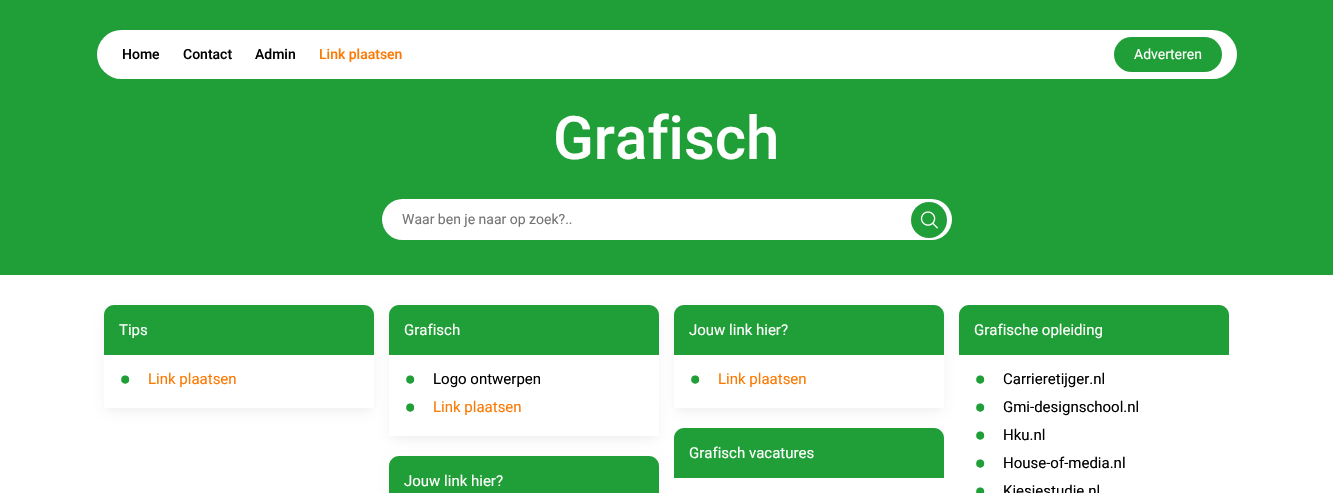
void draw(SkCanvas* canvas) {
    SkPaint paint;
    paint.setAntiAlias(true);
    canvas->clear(0xFFFFFFFF);
    paint.setColor(0xFF209E37);
    canvas->drawRect(SkRect::MakeXYWH(0, 0, 1333, 275), paint);
    paint.setColor(0xFFFFFFFF);
    canvas->drawRoundRect(SkRect::MakeXYWH(97, 30, 1140, 49), 24.5f, 24.5f, paint);
    SkFont font1(fontMgr->matchFamilyStyle("Roboto", SkFontStyle(500, SkFontStyle::kNormal_Width, SkFontStyle::kUpright_Slant)), 14);
    font1.setSubpixel(true);
    paint.setColor(0xFF000000);
    canvas->drawString("Home", 122, 59, font1, paint);
    canvas->drawString("Contact", 183, 59, font1, paint);
    canvas->drawString("Admin", 255, 59, font1, paint);
    paint.setColor(0xFFFB7902);
    canvas->drawString("Link plaatsen", 319, 59, font1, paint);
    paint.setColor(0xFF209E37);
    canvas->drawRoundRect(SkRect::MakeXYWH(1114, 37, 108, 35), 17.5f, 17.5f, paint);
    SkFont font2(fontMgr->matchFamilyStyle("Roboto", SkFontStyle::Normal()), 14);
    font2.setSubpixel(true);
    paint.setColor(0xFFFFFFFF);
    canvas->drawString("Adverteren", 1134, 59, font2, paint);
    SkFont font3(fontMgr->matchFamilyStyle("Roboto", SkFontStyle(500, SkFontStyle::kNormal_Width, SkFontStyle::kUpright_Slant)), 60);
    font3.setSubpixel(true);
    canvas->drawString("Grafisch", 553, 159, font3, paint);
    canvas->drawRoundRect(SkRect::MakeXYWH(382, 199, 570, 41), 20.5f, 20.5f, paint);
    paint.setColor(0xFF757575);
    canvas->drawString("Waar ben je naar op zoek?..", 402, 224, font2, paint);
    paint.setColor(0xFF209E37);
    canvas->drawCircle(929, 220, 18, paint);
    canvas->drawImageRect(SkImages::DeferredFromEncodedData(SkData::MakeFromFileName("img1.png")), SkRect::MakeXYWH(920, 211, 18, 18), SkSamplingOptions());
    canvas->save();
    canvas->clipPath(SkPathBuilder(SkPathFillType::kEvenOdd).moveTo(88, 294).lineTo(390, 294).lineTo(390, 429).lineTo(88, 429).close().moveTo(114, 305).lineTo(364, 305).cubicTo(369.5f, 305, 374, 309.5f, 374, 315).lineTo(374, 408).lineTo(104, 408).lineTo(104, 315).cubicTo(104, 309.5f, 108.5f, 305, 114, 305).close().detach(), true);
    paint.setColor(0x0D000000);
    paint.setMaskFilter(SkMaskFilter::MakeBlur(kNormal_SkBlurStyle, 5));
    canvas->drawRoundRect(SkRect::MakeXYWH(104, 310, 270, 103), 10, 10, paint);
    paint.setMaskFilter(nullptr);
    canvas->restore();
    paint.setColor(0xFF209E37);
    canvas->drawPath(SkPathBuilder().moveTo(114, 305).lineTo(364, 305).cubicTo(369.5f, 305, 374, 309.5f, 374, 315).lineTo(374, 355).lineTo(104, 355).lineTo(104, 315).cubicTo(104, 309.5f, 108.5f, 305, 114, 305).close().detach(), paint);
    SkFont font4(fontMgr->matchFamilyStyle("Roboto", SkFontStyle::Normal()), 15);
    font4.setSubpixel(true);
    paint.setColor(0xFFFFFFFF);
    canvas->drawString("Tips", 119, 335, font4, paint);
    SkFont font5(fontMgr->matchFamilyStyle("Roboto", SkFontStyle::Bold()), 34);
    font5.setSubpixel(true);
    paint.setColor(0xFF209E37);
    canvas->drawString("•", 119, 392, font5, paint);
    paint.setColor(0xFFFB7902);
    canvas->drawString("Link plaatsen", 148, 384, font4, paint);
    canvas->save();
    canvas->clipPath(SkPathBuilder(SkPathFillType::kEvenOdd).moveTo(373, 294).lineTo(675, 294).lineTo(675, 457).lineTo(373, 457).close().moveTo(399, 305).lineTo(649, 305).cubicTo(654.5f, 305, 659, 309.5f, 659, 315).lineTo(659, 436).lineTo(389, 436).lineTo(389, 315).cubicTo(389, 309.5f, 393.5f, 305, 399, 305).close().detach(), true);
    paint.setColor(0x0D000000);
    paint.setMaskFilter(SkMaskFilter::MakeBlur(kNormal_SkBlurStyle, 5));
    canvas->drawRoundRect(SkRect::MakeXYWH(389, 310, 270, 131), 10, 10, paint);
    paint.setMaskFilter(nullptr);
    canvas->restore();
    paint.setColor(0xFF209E37);
    canvas->drawPath(SkPathBuilder().moveTo(399, 305).lineTo(649, 305).cubicTo(654.5f, 305, 659, 309.5f, 659, 315).lineTo(659, 355).lineTo(389, 355).lineTo(389, 315).cubicTo(389, 309.5f, 393.5f, 305, 399, 305).close().detach(), paint);
    paint.setColor(0xFFFFFFFF);
    canvas->drawString("Grafisch", 404, 335, font4, paint);
    paint.setColor(0xFF209E37);
    canvas->drawString("•", 404, 392, font5, paint);
    paint.setColor(0xFF000000);
    canvas->drawString("Logo ontwerpen", 433, 384, font4, paint);
    paint.setColor(0xFF209E37);
    canvas->drawString("•", 404, 420, font5, paint);
    paint.setColor(0xFFFB7902);
    canvas->drawString("Link plaatsen", 433, 412, font4, paint);
    paint.setColor(0x0D000000);
    paint.setMaskFilter(SkMaskFilter::MakeBlur(kNormal_SkBlurStyle, 5));
    canvas->drawRoundRect(SkRect::MakeXYWH(389, 461, 270, 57), 10, 10, paint);
    paint.setMaskFilter(nullptr);
    paint.setColor(0xFF209E37);
    canvas->drawPath(SkPathBuilder().moveTo(399, 456).lineTo(649, 456).cubicTo(654.5f, 456, 659, 460.5f, 659, 466).lineTo(659, 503).lineTo(389, 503).lineTo(389, 466).cubicTo(389, 460.5f, 393.5f, 456, 399, 456).close().detach(), paint);
    paint.setColor(0xFFFFFFFF);
    canvas->drawString("Jouw link hier?", 404, 486, font4, paint);
    canvas->save();
    canvas->clipPath(SkPathBuilder(SkPathFillType::kEvenOdd).moveTo(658, 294).lineTo(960, 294).lineTo(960, 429).lineTo(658, 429).close().moveTo(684, 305).lineTo(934, 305).cubicTo(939.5f, 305, 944, 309.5f, 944, 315).lineTo(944, 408).lineTo(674, 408).lineTo(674, 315).cubicTo(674, 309.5f, 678.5f, 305, 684, 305).close().detach(), true);
    paint.setColor(0x0D000000);
    paint.setMaskFilter(SkMaskFilter::MakeBlur(kNormal_SkBlurStyle, 5));
    canvas->drawRoundRect(SkRect::MakeXYWH(674, 310, 270, 103), 10, 10, paint);
    paint.setMaskFilter(nullptr);
    canvas->restore();
    paint.setColor(0xFF209E37);
    canvas->drawPath(SkPathBuilder().moveTo(684, 305).lineTo(934, 305).cubicTo(939.5f, 305, 944, 309.5f, 944, 315).lineTo(944, 355).lineTo(674, 355).lineTo(674, 315).cubicTo(674, 309.5f, 678.5f, 305, 684, 305).close().detach(), paint);
    paint.setColor(0xFFFFFFFF);
    canvas->drawString("Jouw link hier?", 689, 335, font4, paint);
    paint.setColor(0xFF209E37);
    canvas->drawString("•", 689, 392, font5, paint);
    paint.setColor(0xFFFB7902);
    canvas->drawString("Link plaatsen", 718, 384, font4, paint);
    paint.setColor(0xFF209E37);
    canvas->drawPath(SkPathBuilder().moveTo(684, 428).lineTo(934, 428).cubicTo(939.5f, 428, 944, 432.5f, 944, 438).lineTo(944, 478).lineTo(674, 478).lineTo(674, 438).cubicTo(674, 432.5f, 678.5f, 428, 684, 428).close().detach(), paint);
    paint.setColor(0xFFFFFFFF);
    canvas->drawString("Grafisch vacatures", 689, 458, font4, paint);
    paint.setColor(0xFF209E37);
    canvas->drawPath(SkPathBuilder().moveTo(969, 305).lineTo(1219, 305).cubicTo(1224.5f, 305, 1229, 309.5f, 1229, 315).lineTo(1229, 355).lineTo(959, 355).lineTo(959, 315).cubicTo(959, 309.5f, 963.5f, 305, 969, 305).close().detach(), paint);
    paint.setColor(0xFFFFFFFF);
    canvas->drawString("Grafische opleiding", 974, 335, font4, paint);
    paint.setColor(0xFF209E37);
    canvas->drawString("•", 974, 392, font5, paint);
    paint.setColor(0xFF000000);
    canvas->drawString("Carrieretijger.nl", 1003, 384, font4, paint);
    paint.setColor(0xFF209E37);
    canvas->drawString("•", 974, 420, font5, paint);
    paint.setColor(0xFF000000);
    canvas->drawString("Gmi-designschool.nl", 1003, 412, font4, paint);
    paint.setColor(0xFF209E37);
    canvas->drawString("•", 974, 448, font5, paint);
    paint.setColor(0xFF000000);
    canvas->drawString("Hku.nl", 1003, 440, font4, paint);
    paint.setColor(0xFF209E37);
    canvas->drawString("•", 974, 476, font5, paint);
    paint.setColor(0xFF000000);
    canvas->drawString("House-of-media.nl", 1003, 468, font4, paint);
    paint.setColor(0xFF209E37);
    canvas->drawString("•", 974, 504, font5, paint);
    paint.setColor(0xFF000000);
    canvas->drawString("Kiesjestudie.nl", 1003, 496, font4, paint);
}
